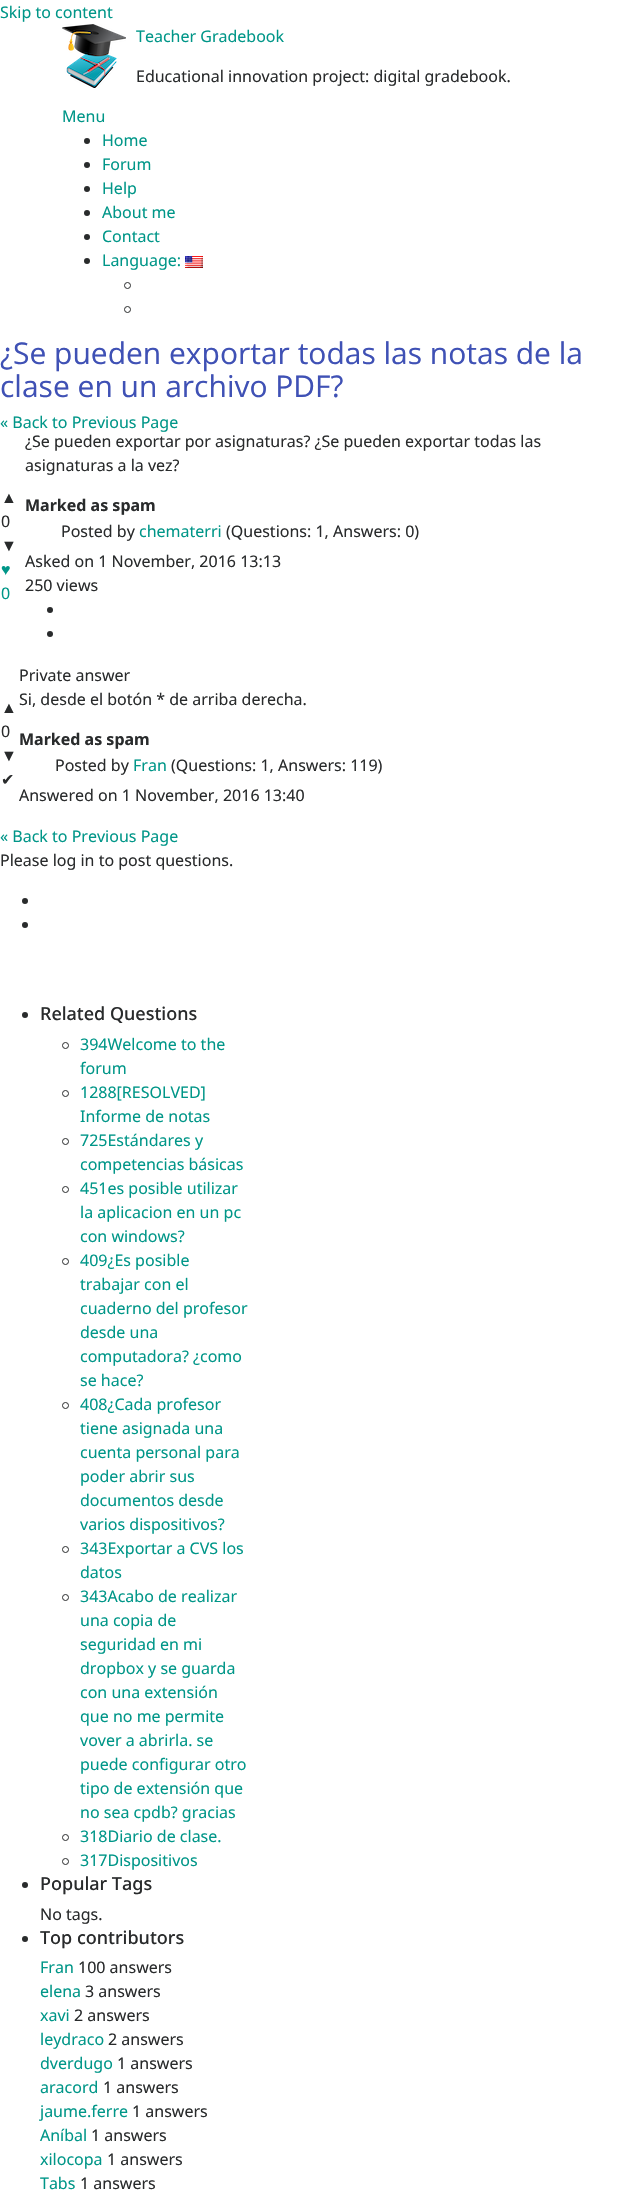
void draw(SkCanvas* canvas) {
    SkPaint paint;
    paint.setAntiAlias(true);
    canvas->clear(0xFFFFFFFF);
    SkFont font1(fontMgr->matchFamilyStyle("Noto Sans", SkFontStyle::Normal()), 16);
    font1.setSubpixel(true);
    paint.setColor(0xFF009688);
    canvas->drawString("Skip to content", 0, 18, font1, paint);
    canvas->drawImageRect(SkImages::DeferredFromEncodedData(SkData::MakeFromFileName("img1.png")), SkRect::MakeXYWH(62, 24, 64, 64), SkSamplingOptions());
    canvas->drawString("Teacher Gradebook", 136, 42, font1, paint);
    paint.setColor(0xFF292B2C);
    canvas->drawString("Educational innovation project: digital gradebook.", 136, 82, font1, paint);
    paint.setColor(0xFF009688);
    canvas->drawString("Menu", 62, 122, font1, paint);
    paint.setColor(0xFF292B2C);
    canvas->drawCircle(87, 141, 3, paint);
    paint.setColor(0xFF009688);
    canvas->drawString("Home", 102, 146, font1, paint);
    paint.setColor(0xFF292B2C);
    canvas->drawCircle(87, 165, 3, paint);
    paint.setColor(0xFF009688);
    canvas->drawString("Forum", 102, 170, font1, paint);
    paint.setColor(0xFF292B2C);
    canvas->drawCircle(87, 189, 3, paint);
    paint.setColor(0xFF009688);
    canvas->drawString("Help", 102, 194, font1, paint);
    paint.setColor(0xFF292B2C);
    canvas->drawCircle(87, 213, 3, paint);
    paint.setColor(0xFF009688);
    canvas->drawString("About me", 102, 218, font1, paint);
    paint.setColor(0xFF292B2C);
    canvas->drawCircle(87, 237, 3, paint);
    paint.setColor(0xFF009688);
    canvas->drawString("Contact", 102, 242, font1, paint);
    paint.setColor(0xFF292B2C);
    canvas->drawCircle(87, 261, 3, paint);
    paint.setColor(0xFF009688);
    canvas->drawString("Language:", 102, 266, font1, paint);
    canvas->drawImageRect(SkImages::DeferredFromEncodedData(SkData::MakeFromFileName("img2.png")), SkRect::MakeXYWH(185, 256, 18, 12), SkSamplingOptions());
    paint.setStyle(SkPaint::kStroke_Style);
    paint.setStrokeWidth(1);
    paint.setColor(0xFF292B2C);
    canvas->drawCircle(127.5f, 285.5f, 3, paint);
    canvas->drawCircle(127.5f, 309.5f, 3, paint);
    SkFont font2(fontMgr->matchFamilyStyle("Open Sans", SkFontStyle::Normal()), 30);
    font2.setSubpixel(true);
    paint.setStyle(SkPaint::kFill_Style);
    paint.setColor(0xFF3F51B5);
    canvas->drawString("¿Se pueden exportar todas las notas de la", 0, 364, font2, paint);
    canvas->drawString("clase en un archivo PDF?", 0, 397, font2, paint);
    paint.setColor(0xFF009688);
    canvas->drawString("« Back to Previous Page", 0, 428, font1, paint);
    SkFont font3(fontMgr->matchFamilyStyle("Liberation Sans", SkFontStyle::Normal()), 16);
    font3.setSubpixel(true);
    paint.setColor(0xFF292B2C);
    canvas->drawString("▲", 1, 503, font3, paint);
    canvas->drawString("0", 1, 527, font1, paint);
    canvas->drawString("▼", 1, 551, font3, paint);
    paint.setColor(0xFF009688);
    canvas->drawString("♥", 1, 575, font3, paint);
    canvas->drawString("0", 1, 599, font1, paint);
    paint.setColor(0xFF292B2C);
    canvas->drawString("¿Se pueden exportar por asignaturas? ¿Se pueden exportar todas las", 25, 447, font1, paint);
    canvas->drawString("asignaturas a la vez?", 25, 471, font1, paint);
    SkFont font4(fontMgr->matchFamilyStyle("Noto Sans", SkFontStyle::Bold()), 16);
    font4.setSubpixel(true);
    canvas->drawString("Marked as spam", 25, 511, font4, paint);
    canvas->drawString("Posted by", 61, 537, font1, paint);
    paint.setColor(0xFF009688);
    canvas->drawString("chematerri", 139, 537, font1, paint);
    paint.setColor(0xFF292B2C);
    canvas->drawString("(Questions: 1, Answers: 0)", 226, 537, font1, paint);
    canvas->drawString("Asked on 1 November, 2016 13:13", 25, 567, font1, paint);
    canvas->drawString("250 views", 25, 591, font1, paint);
    canvas->drawCircle(50, 610, 3, paint);
    canvas->drawCircle(50, 634, 3, paint);
    canvas->drawString("▲", 1, 713, font3, paint);
    canvas->drawString("0", 1, 737, font1, paint);
    canvas->drawString("▼", 1, 761, font3, paint);
    SkFont font5(fontMgr->matchFamilyStyle("DejaVu Sans", SkFontStyle::Normal()), 16);
    font5.setSubpixel(true);
    canvas->drawString("✔", 1, 785, font5, paint);
    canvas->drawString("Private answer", 19, 681, font1, paint);
    canvas->drawString("Si, desde el botón * de arriba derecha.", 19, 705, font1, paint);
    canvas->drawString("Marked as spam", 19, 745, font4, paint);
    canvas->drawString("Posted by", 55, 771, font1, paint);
    paint.setColor(0xFF009688);
    canvas->drawString("Fran", 133, 771, font1, paint);
    paint.setColor(0xFF292B2C);
    canvas->drawString("(Questions: 1, Answers: 119)", 171, 771, font1, paint);
    canvas->drawString("Answered on 1 November, 2016 13:40", 19, 801, font1, paint);
    paint.setColor(0xFF009688);
    canvas->drawString("« Back to Previous Page", 0, 842, font1, paint);
    paint.setColor(0xFF292B2C);
    canvas->drawString("Please log in to post questions.", 0, 866, font1, paint);
    canvas->drawCircle(25, 901, 3, paint);
    canvas->drawCircle(25, 925, 3, paint);
    canvas->drawCircle(25, 1015, 3, paint);
    SkFont font6(fontMgr->matchFamilyStyle("Noto Sans", SkFontStyle(500, SkFontStyle::kNormal_Width, SkFontStyle::kUpright_Slant)), 18);
    font6.setSubpixel(true);
    canvas->drawString("Related Questions", 40, 1020, font6, paint);
    paint.setStyle(SkPaint::kStroke_Style);
    canvas->drawCircle(65.5f, 1045.5f, 3, paint);
    paint.setStyle(SkPaint::kFill_Style);
    paint.setColor(0xFF009688);
    canvas->drawString("394Welcome to the", 80, 1050, font1, paint);
    canvas->drawString("forum", 80, 1074, font1, paint);
    paint.setStyle(SkPaint::kStroke_Style);
    paint.setColor(0xFF292B2C);
    canvas->drawCircle(65.5f, 1093.5f, 3, paint);
    paint.setStyle(SkPaint::kFill_Style);
    paint.setColor(0xFF009688);
    canvas->drawString("1288[RESOLVED]", 80, 1098, font1, paint);
    canvas->drawString("Informe de notas", 80, 1122, font1, paint);
    paint.setStyle(SkPaint::kStroke_Style);
    paint.setColor(0xFF292B2C);
    canvas->drawCircle(65.5f, 1141.5f, 3, paint);
    paint.setStyle(SkPaint::kFill_Style);
    paint.setColor(0xFF009688);
    canvas->drawString("725Estándares y", 80, 1146, font1, paint);
    canvas->drawString("competencias básicas", 80, 1170, font1, paint);
    paint.setStyle(SkPaint::kStroke_Style);
    paint.setColor(0xFF292B2C);
    canvas->drawCircle(65.5f, 1189.5f, 3, paint);
    paint.setStyle(SkPaint::kFill_Style);
    paint.setColor(0xFF009688);
    canvas->drawString("451es posible utilizar", 80, 1194, font1, paint);
    canvas->drawString("la aplicacion en un pc", 80, 1218, font1, paint);
    canvas->drawString("con windows?", 80, 1242, font1, paint);
    paint.setStyle(SkPaint::kStroke_Style);
    paint.setColor(0xFF292B2C);
    canvas->drawCircle(65.5f, 1261.5f, 3, paint);
    paint.setStyle(SkPaint::kFill_Style);
    paint.setColor(0xFF009688);
    canvas->drawString("409¿Es posible", 80, 1266, font1, paint);
    canvas->drawString("trabajar con el", 80, 1290, font1, paint);
    canvas->drawString("cuaderno del profesor", 80, 1314, font1, paint);
    canvas->drawString("desde una", 80, 1338, font1, paint);
    canvas->drawString("computadora? ¿como", 80, 1362, font1, paint);
    canvas->drawString("se hace?", 80, 1386, font1, paint);
    paint.setStyle(SkPaint::kStroke_Style);
    paint.setColor(0xFF292B2C);
    canvas->drawCircle(65.5f, 1405.5f, 3, paint);
    paint.setStyle(SkPaint::kFill_Style);
    paint.setColor(0xFF009688);
    canvas->drawString("408¿Cada profesor", 80, 1410, font1, paint);
    canvas->drawString("tiene asignada una", 80, 1434, font1, paint);
    canvas->drawString("cuenta personal para", 80, 1458, font1, paint);
    canvas->drawString("poder abrir sus", 80, 1482, font1, paint);
    canvas->drawString("documentos desde", 80, 1506, font1, paint);
    canvas->drawString("varios dispositivos?", 80, 1530, font1, paint);
    paint.setStyle(SkPaint::kStroke_Style);
    paint.setColor(0xFF292B2C);
    canvas->drawCircle(65.5f, 1549.5f, 3, paint);
    paint.setStyle(SkPaint::kFill_Style);
    paint.setColor(0xFF009688);
    canvas->drawString("343Exportar a CVS los", 80, 1554, font1, paint);
    canvas->drawString("datos", 80, 1578, font1, paint);
    paint.setStyle(SkPaint::kStroke_Style);
    paint.setColor(0xFF292B2C);
    canvas->drawCircle(65.5f, 1597.5f, 3, paint);
    paint.setStyle(SkPaint::kFill_Style);
    paint.setColor(0xFF009688);
    canvas->drawString("343Acabo de realizar", 80, 1602, font1, paint);
    canvas->drawString("una copia de", 80, 1626, font1, paint);
    canvas->drawString("seguridad en mi", 80, 1650, font1, paint);
    canvas->drawString("dropbox y se guarda", 80, 1674, font1, paint);
    canvas->drawString("con una extensión", 80, 1698, font1, paint);
    canvas->drawString("que no me permite", 80, 1722, font1, paint);
    canvas->drawString("vover a abrirla. se", 80, 1746, font1, paint);
    canvas->drawString("puede configurar otro", 80, 1770, font1, paint);
    canvas->drawString("tipo de extensión que", 80, 1794, font1, paint);
    canvas->drawString("no sea cpdb? gracias", 80, 1818, font1, paint);
    paint.setStyle(SkPaint::kStroke_Style);
    paint.setColor(0xFF292B2C);
    canvas->drawCircle(65.5f, 1837.5f, 3, paint);
    paint.setStyle(SkPaint::kFill_Style);
    paint.setColor(0xFF009688);
    canvas->drawString("318Diario de clase.", 80, 1842, font1, paint);
    paint.setStyle(SkPaint::kStroke_Style);
    paint.setColor(0xFF292B2C);
    canvas->drawCircle(65.5f, 1861.5f, 3, paint);
    paint.setStyle(SkPaint::kFill_Style);
    paint.setColor(0xFF009688);
    canvas->drawString("317Dispositivos", 80, 1866, font1, paint);
    paint.setColor(0xFF292B2C);
    canvas->drawCircle(25, 1885, 3, paint);
    canvas->drawString("Popular Tags", 40, 1890, font6, paint);
    canvas->drawString("No tags.", 40, 1920, font1, paint);
    canvas->drawCircle(25, 1939, 3, paint);
    canvas->drawString("Top contributors", 40, 1944, font6, paint);
    paint.setColor(0xFF009688);
    canvas->drawString("Fran", 40, 1973, font1, paint);
    paint.setColor(0xFF292B2C);
    canvas->drawString("100 answers", 78, 1973, font1, paint);
    paint.setColor(0xFF009688);
    canvas->drawString("elena", 40, 1997, font1, paint);
    paint.setColor(0xFF292B2C);
    canvas->drawString("3 answers", 85, 1997, font1, paint);
    paint.setColor(0xFF009688);
    canvas->drawString("xavi", 40, 2021, font1, paint);
    paint.setColor(0xFF292B2C);
    canvas->drawString("2 answers", 74, 2021, font1, paint);
    paint.setColor(0xFF009688);
    canvas->drawString("leydraco", 40, 2045, font1, paint);
    paint.setColor(0xFF292B2C);
    canvas->drawString("2 answers", 108, 2045, font1, paint);
    paint.setColor(0xFF009688);
    canvas->drawString("dverdugo", 40, 2069, font1, paint);
    paint.setColor(0xFF292B2C);
    canvas->drawString("1 answers", 117, 2069, font1, paint);
    paint.setColor(0xFF009688);
    canvas->drawString("aracord", 40, 2093, font1, paint);
    paint.setColor(0xFF292B2C);
    canvas->drawString("1 answers", 103, 2093, font1, paint);
    paint.setColor(0xFF009688);
    canvas->drawString("jaume.ferre", 40, 2117, font1, paint);
    paint.setColor(0xFF292B2C);
    canvas->drawString("1 answers", 132, 2117, font1, paint);
    paint.setColor(0xFF009688);
    canvas->drawString("Aníbal", 40, 2141, font1, paint);
    paint.setColor(0xFF292B2C);
    canvas->drawString("1 answers", 91, 2141, font1, paint);
    paint.setColor(0xFF009688);
    canvas->drawString("xilocopa", 40, 2165, font1, paint);
    paint.setColor(0xFF292B2C);
    canvas->drawString("1 answers", 107, 2165, font1, paint);
    paint.setColor(0xFF009688);
    canvas->drawString("Tabs", 40, 2189, font1, paint);
    paint.setColor(0xFF292B2C);
    canvas->drawString("1 answers", 80, 2189, font1, paint);
}
